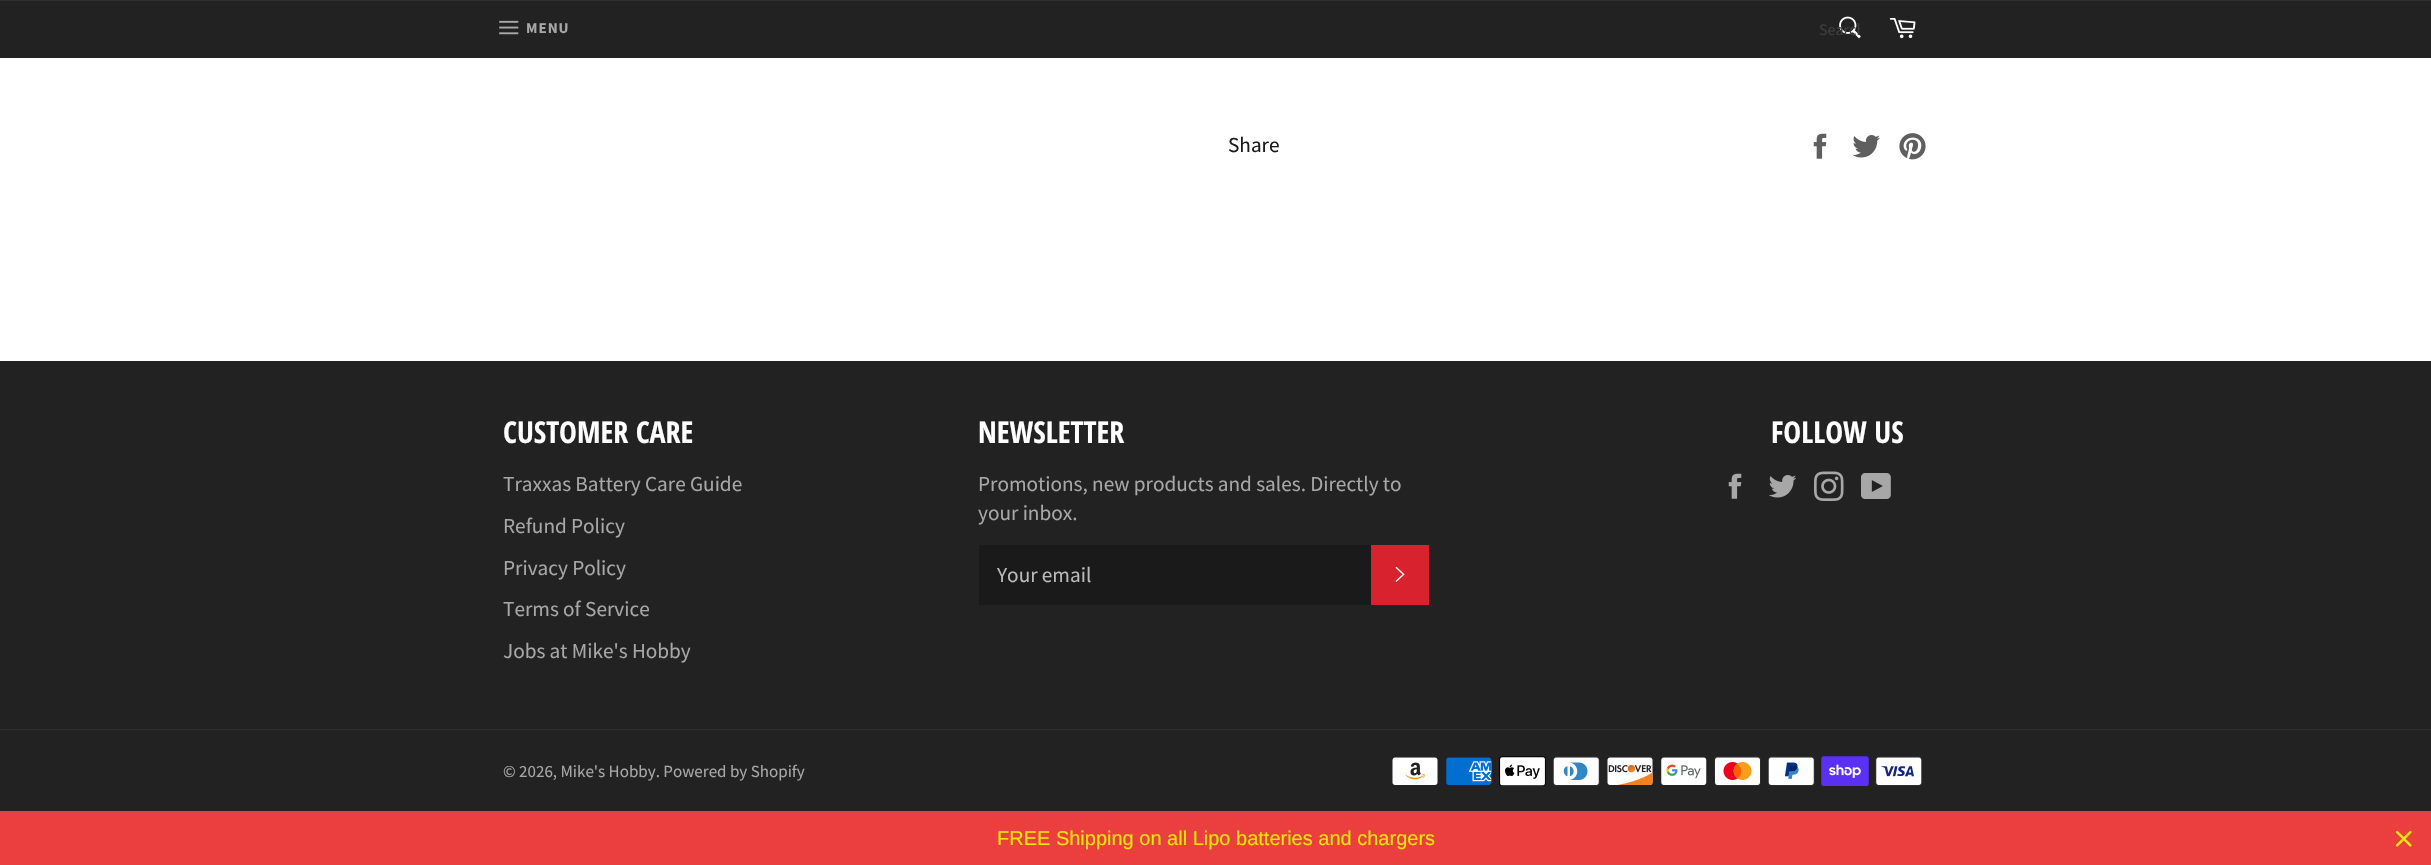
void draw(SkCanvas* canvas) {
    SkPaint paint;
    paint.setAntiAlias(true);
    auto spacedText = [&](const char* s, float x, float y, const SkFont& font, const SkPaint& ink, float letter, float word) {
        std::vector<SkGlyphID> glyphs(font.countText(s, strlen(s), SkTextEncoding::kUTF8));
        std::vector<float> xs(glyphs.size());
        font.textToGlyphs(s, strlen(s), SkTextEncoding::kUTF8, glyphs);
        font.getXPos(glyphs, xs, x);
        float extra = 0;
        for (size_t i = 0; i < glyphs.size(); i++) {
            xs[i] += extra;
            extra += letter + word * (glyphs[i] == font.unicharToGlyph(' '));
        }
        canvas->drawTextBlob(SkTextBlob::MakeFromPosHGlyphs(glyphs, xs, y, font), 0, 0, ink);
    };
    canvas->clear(0xFFFFFFFF);
    paint.setColor(0xFF222222);
    canvas->drawRect(SkRect::MakeXYWH(0, 1, 2431, 57), paint);
    paint.setColor(0xFF2F2F2F);
    canvas->drawRect(SkRect::MakeXYWH(0, 0, 2431, 1), paint);
    canvas->drawImageRect(SkImages::DeferredFromEncodedData(SkData::MakeFromFileName("img1.png")), SkRect::MakeXYWH(499, 20, 20, 15), SkSamplingOptions());
    SkFont font1(fontMgr->matchFamilyStyle("Source Sans Pro", SkFontStyle::Bold()), 15);
    font1.setSubpixel(true);
    paint.setColor(0xFFA7A7A7);
    spacedText("MENU", 526, 33, font1, paint, 1, 0);
    canvas->drawImageRect(SkImages::DeferredFromEncodedData(SkData::MakeFromFileName("img2.png")), SkRect::MakeXYWH(1839, 16, 22, 23), SkSamplingOptions());
    canvas->save();
    canvas->clipRect(SkRect::MakeXYWH(1820, 19, 40, 21));
    SkFont font2(fontMgr->matchFamilyStyle("Source Sans Pro", SkFontStyle::Normal()), 16);
    font2.setSubpixel(true);
    paint.setColor(0xFF3E3E3E);
    canvas->drawString("Search", 1819, 35, font2, paint);
    canvas->restore();
    canvas->drawImageRect(SkImages::DeferredFromEncodedData(SkData::MakeFromFileName("img3.png")), SkRect::MakeXYWH(1889, 18, 27, 21), SkSamplingOptions());
    SkFont font3(fontMgr->matchFamilyStyle("Source Sans Pro", SkFontStyle::Normal()), 21.25f);
    font3.setSubpixel(true);
    paint.setColor(0xFF1A1A1A);
    canvas->drawString("Share", 1228, 152, font3, paint);
    canvas->drawImageRect(SkImages::DeferredFromEncodedData(SkData::MakeFromFileName("img4.png")), SkRect::MakeXYWH(1813, 133, 14, 26), SkSamplingOptions());
    canvas->drawImageRect(SkImages::DeferredFromEncodedData(SkData::MakeFromFileName("img5.png")), SkRect::MakeXYWH(1852, 135, 28, 23), SkSamplingOptions());
    canvas->drawImageRect(SkImages::DeferredFromEncodedData(SkData::MakeFromFileName("img6.png")), SkRect::MakeXYWH(1899, 133, 27, 27), SkSamplingOptions());
    paint.setColor(0xFF222222);
    canvas->drawRect(SkRect::MakeXYWH(0, 361, 2431, 450), paint);
    SkFont font4(fontMgr->matchFamilyStyle("Open Sans Condensed", SkFontStyle::Bold()), 30);
    font4.setSubpixel(true);
    paint.setColor(0xFFFFFFFF);
    canvas->drawString("CUSTOMER CARE", 503, 443, font4, paint);
    paint.setColor(0xFFA7A7A7);
    canvas->drawString("Traxxas Battery Care Guide", 503, 491, font3, paint);
    canvas->drawString("Refund Policy", 503, 533, font3, paint);
    canvas->drawString("Privacy Policy", 503, 575, font3, paint);
    canvas->drawString("Terms of Service", 503, 616, font3, paint);
    canvas->drawString("Jobs at Mike's Hobby", 503, 658, font3, paint);
    paint.setColor(0xFFFFFFFF);
    canvas->drawString("NEWSLETTER", 978, 443, font4, paint);
    paint.setColor(0xFFA7A7A7);
    canvas->drawString("Promotions, new products and sales. Directly to", 978, 491, font3, paint);
    canvas->drawString("your inbox.", 978, 520, font3, paint);
    paint.setColor(0xFF1A1A1A);
    canvas->drawRect(SkRect::MakeXYWH(979, 545, 392, 60), paint);
    paint.setColor(0xFFBABABA);
    canvas->drawString("Your email", 997, 582, font3, paint);
    paint.setColor(0xFFD8232F);
    canvas->drawRect(SkRect::MakeXYWH(1371, 545, 58, 60), paint);
    canvas->drawImageRect(SkImages::DeferredFromEncodedData(SkData::MakeFromFileName("img7.png")), SkRect::MakeXYWH(1395, 566, 10, 16), SkSamplingOptions());
    paint.setColor(0xFFFFFFFF);
    canvas->drawString("FOLLOW US", 1771, 443, font4, paint);
    canvas->drawImageRect(SkImages::DeferredFromEncodedData(SkData::MakeFromFileName("img8.png")), SkRect::MakeXYWH(1728, 473, 14, 26), SkSamplingOptions());
    canvas->drawImageRect(SkImages::DeferredFromEncodedData(SkData::MakeFromFileName("img9.png")), SkRect::MakeXYWH(1769, 475, 28, 23), SkSamplingOptions());
    canvas->drawImageRect(SkImages::DeferredFromEncodedData(SkData::MakeFromFileName("img10.png")), SkRect::MakeXYWH(1814, 471, 30, 30), SkSamplingOptions());
    canvas->drawImageRect(SkImages::DeferredFromEncodedData(SkData::MakeFromFileName("img11.png")), SkRect::MakeXYWH(1861, 473, 30, 26), SkSamplingOptions());
    paint.setColor(0xFF2F2F2F);
    canvas->drawRect(SkRect::MakeXYWH(0, 729, 2431, 1), paint);
    SkFont font5(fontMgr->matchFamilyStyle("Source Sans Pro", SkFontStyle::Normal()), 17);
    font5.setSubpixel(true);
    paint.setColor(0xFFA7A7A7);
    canvas->drawString("© 2026, Mike's Hobby. Powered by Shopify", 503, 777, font5, paint);
    canvas->drawImageRect(SkImages::DeferredFromEncodedData(SkData::MakeFromFileName("img12.png")), SkRect::MakeXYWH(1392, 757, 46, 28), SkSamplingOptions());
    canvas->drawImageRect(SkImages::DeferredFromEncodedData(SkData::MakeFromFileName("img13.png")), SkRect::MakeXYWH(1446, 757, 46, 28), SkSamplingOptions());
    canvas->drawImageRect(SkImages::DeferredFromEncodedData(SkData::MakeFromFileName("img14.png")), SkRect::MakeXYWH(1499, 756, 47, 30), SkSamplingOptions());
    canvas->drawImageRect(SkImages::DeferredFromEncodedData(SkData::MakeFromFileName("img15.png")), SkRect::MakeXYWH(1553, 756, 47, 30), SkSamplingOptions());
    canvas->drawImageRect(SkImages::DeferredFromEncodedData(SkData::MakeFromFileName("img16.png")), SkRect::MakeXYWH(1607, 757, 46, 28), SkSamplingOptions());
    canvas->drawImageRect(SkImages::DeferredFromEncodedData(SkData::MakeFromFileName("img17.png")), SkRect::MakeXYWH(1661, 757, 46, 28), SkSamplingOptions());
    canvas->drawImageRect(SkImages::DeferredFromEncodedData(SkData::MakeFromFileName("img18.png")), SkRect::MakeXYWH(1714, 756, 47, 30), SkSamplingOptions());
    canvas->drawImageRect(SkImages::DeferredFromEncodedData(SkData::MakeFromFileName("img19.png")), SkRect::MakeXYWH(1768, 756, 47, 30), SkSamplingOptions());
    canvas->drawImageRect(SkImages::DeferredFromEncodedData(SkData::MakeFromFileName("img20.png")), SkRect::MakeXYWH(1821, 756, 48, 30), SkSamplingOptions());
    canvas->drawImageRect(SkImages::DeferredFromEncodedData(SkData::MakeFromFileName("img21.png")), SkRect::MakeXYWH(1875, 756, 47, 30), SkSamplingOptions());
    paint.setColor(0xFFEB3E3E);
    canvas->drawRect(SkRect::MakeXYWH(0, 811, 2431, 54), paint);
    SkFont font6(fontMgr->matchFamilyStyle("Liberation Sans", SkFontStyle::Normal()), 20);
    font6.setSubpixel(true);
    paint.setColor(0xFFF0E40D);
    canvas->drawString("FREE Shipping on all Lipo batteries and chargers", 997, 845, font6, paint);
    canvas->drawImageRect(SkImages::DeferredFromEncodedData(SkData::MakeFromFileName("img22.png")), SkRect::MakeXYWH(2395, 830, 17, 17), SkSamplingOptions());
}
